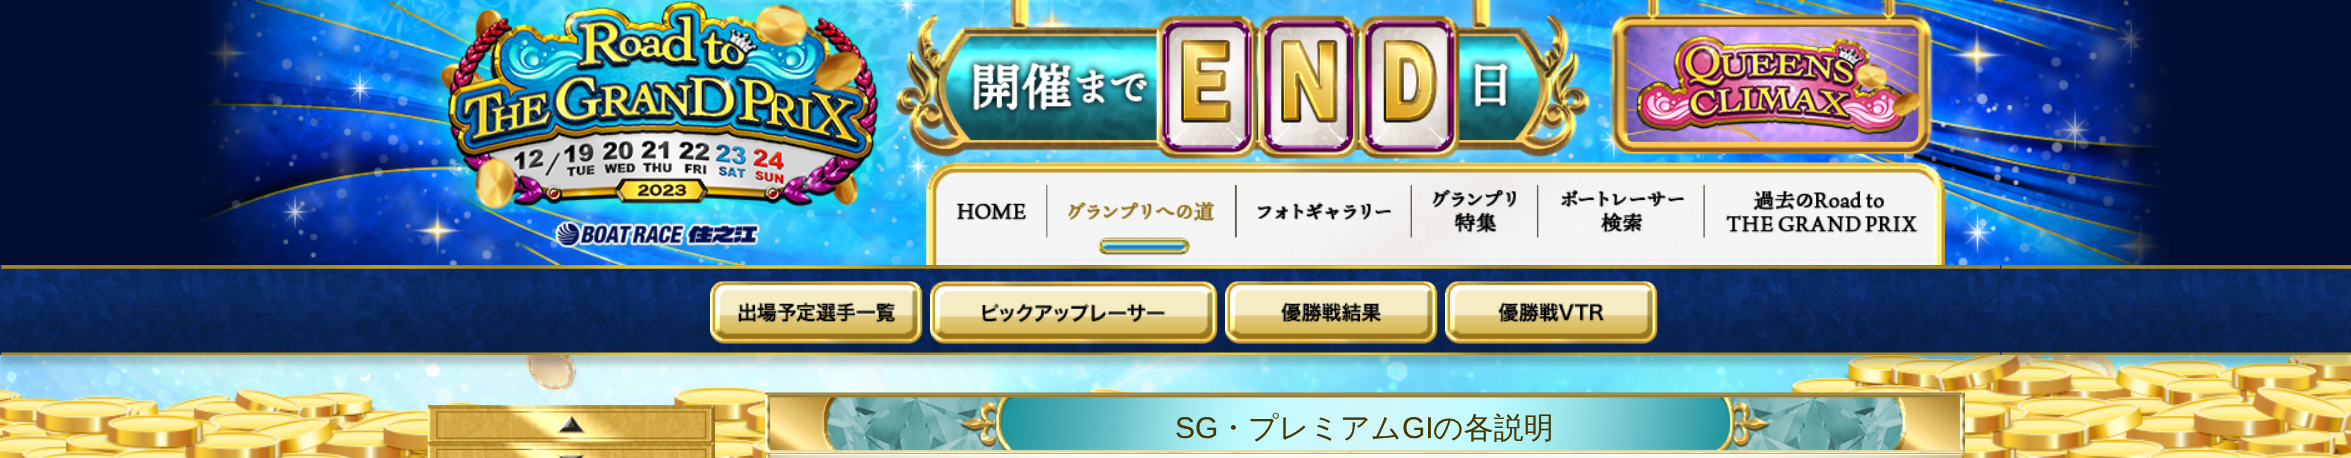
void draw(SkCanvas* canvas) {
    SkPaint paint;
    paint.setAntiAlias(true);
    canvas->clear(0xFFFFFFFF);
    canvas->drawImageRect(SkImages::DeferredFromEncodedData(SkData::MakeFromFileName("img1.png")), SkRect::MakeXYWH(0, 355, 2351, 103), SkSamplingOptions());
    paint.setColor(0xFF010D31);
    canvas->drawRect(SkRect::MakeXYWH(0, 0, 2351, 265), paint);
    canvas->drawImageRect(SkImages::DeferredFromEncodedData(SkData::MakeFromFileName("img2.png")), SkRect::MakeXYWH(195, 0, 1976, 265), SkSamplingOptions());
    canvas->drawImageRect(SkImages::DeferredFromEncodedData(SkData::MakeFromFileName("img4.png")), SkRect::MakeXYWH(892, 0, 701, 163), SkSamplingOptions());
    canvas->drawImageRect(SkImages::DeferredFromEncodedData(SkData::MakeFromFileName("img3.png")), SkRect::MakeXYWH(426, 0, 468, 213), SkSamplingOptions());
    canvas->drawImageRect(SkImages::DeferredFromEncodedData(SkData::MakeFromFileName("img5.png")), SkRect::MakeXYWH(1608, 0, 326, 154), SkSamplingOptions());
    canvas->drawImageRect(SkImages::DeferredFromEncodedData(SkData::MakeFromFileName("img6.png")), SkRect::MakeXYWH(551, 218, 212, 32), SkSamplingOptions());
    paint.setColor(0x33000000);
    paint.setMaskFilter(SkMaskFilter::MakeBlur(kNormal_SkBlurStyle, 3));
    canvas->drawRect(SkRect::MakeXYWH(0, 274, 2351, 90), paint);
    paint.setMaskFilter(nullptr);
    canvas->drawImageRect(SkImages::DeferredFromEncodedData(SkData::MakeFromFileName("img7.png")), SkRect::MakeXYWH(926, 162, 1019, 103), SkSamplingOptions());
    canvas->drawImageRect(SkImages::DeferredFromEncodedData(SkData::MakeFromFileName("img8.png")), SkRect::MakeXYWH(1047, 162, 190, 94), SkSamplingOptions());
    canvas->drawImageRect(SkImages::DeferredFromEncodedData(SkData::MakeFromFileName("img9.png")), SkRect::MakeXYWH(0, 265, 2351, 90), SkSamplingOptions());
    canvas->drawImageRect(SkImages::DeferredFromEncodedData(SkData::MakeFromFileName("img10.png")), SkRect::MakeXYWH(710, 281, 213, 63), SkSamplingOptions());
    canvas->drawImageRect(SkImages::DeferredFromEncodedData(SkData::MakeFromFileName("img11.png")), SkRect::MakeXYWH(930, 281, 288, 63), SkSamplingOptions());
    canvas->drawImageRect(SkImages::DeferredFromEncodedData(SkData::MakeFromFileName("img12.png")), SkRect::MakeXYWH(1225, 281, 213, 63), SkSamplingOptions());
    canvas->drawImageRect(SkImages::DeferredFromEncodedData(SkData::MakeFromFileName("img13.png")), SkRect::MakeXYWH(1445, 281, 213, 63), SkSamplingOptions());
    canvas->drawImageRect(SkImages::DeferredFromEncodedData(SkData::MakeFromFileName("img14.png")), SkRect::MakeXYWH(427, 405, 288, 40), SkSamplingOptions());
    canvas->drawImageRect(SkImages::DeferredFromEncodedData(SkData::MakeFromFileName("img15.png")), SkRect::MakeXYWH(427, 442, 288, 16), SkSamplingOptions());
    canvas->drawImageRect(SkImages::DeferredFromEncodedData(SkData::MakeFromFileName("img16.png")), SkRect::MakeXYWH(765, 392, 1200, 61), SkSamplingOptions());
    SkFont font1(fontMgr->matchFamilyStyle("Liberation Sans", SkFontStyle::Normal()), 30);
    font1.setSubpixel(true);
    paint.setColor(0xFF4A3800);
    canvas->drawString("SG", 1175, 438, font1, paint);
    SkFont font2(fontMgr->matchFamilyStyle("WenQuanYi Zen Hei", SkFontStyle(500, SkFontStyle::kNormal_Width, SkFontStyle::kUpright_Slant)), 30);
    font2.setSubpixel(true);
    canvas->drawString("・プレミアム", 1218, 438, font2, paint);
    canvas->drawString("GI", 1402, 438, font1, paint);
    canvas->drawString("の各説明", 1433, 438, font2, paint);
    canvas->drawImageRect(SkImages::DeferredFromEncodedData(SkData::MakeFromFileName("img17.png")), SkRect::MakeXYWH(765, 452, 1200, 6), SkSamplingOptions());
    paint.setStyle(SkPaint::kStroke_Style);
    paint.setStrokeWidth(1);
    paint.setColor(0xFFE3B300);
    canvas->drawRect(SkRect::MakeXYWH(765.5f, 453.5f, 1199, 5), paint);
}
